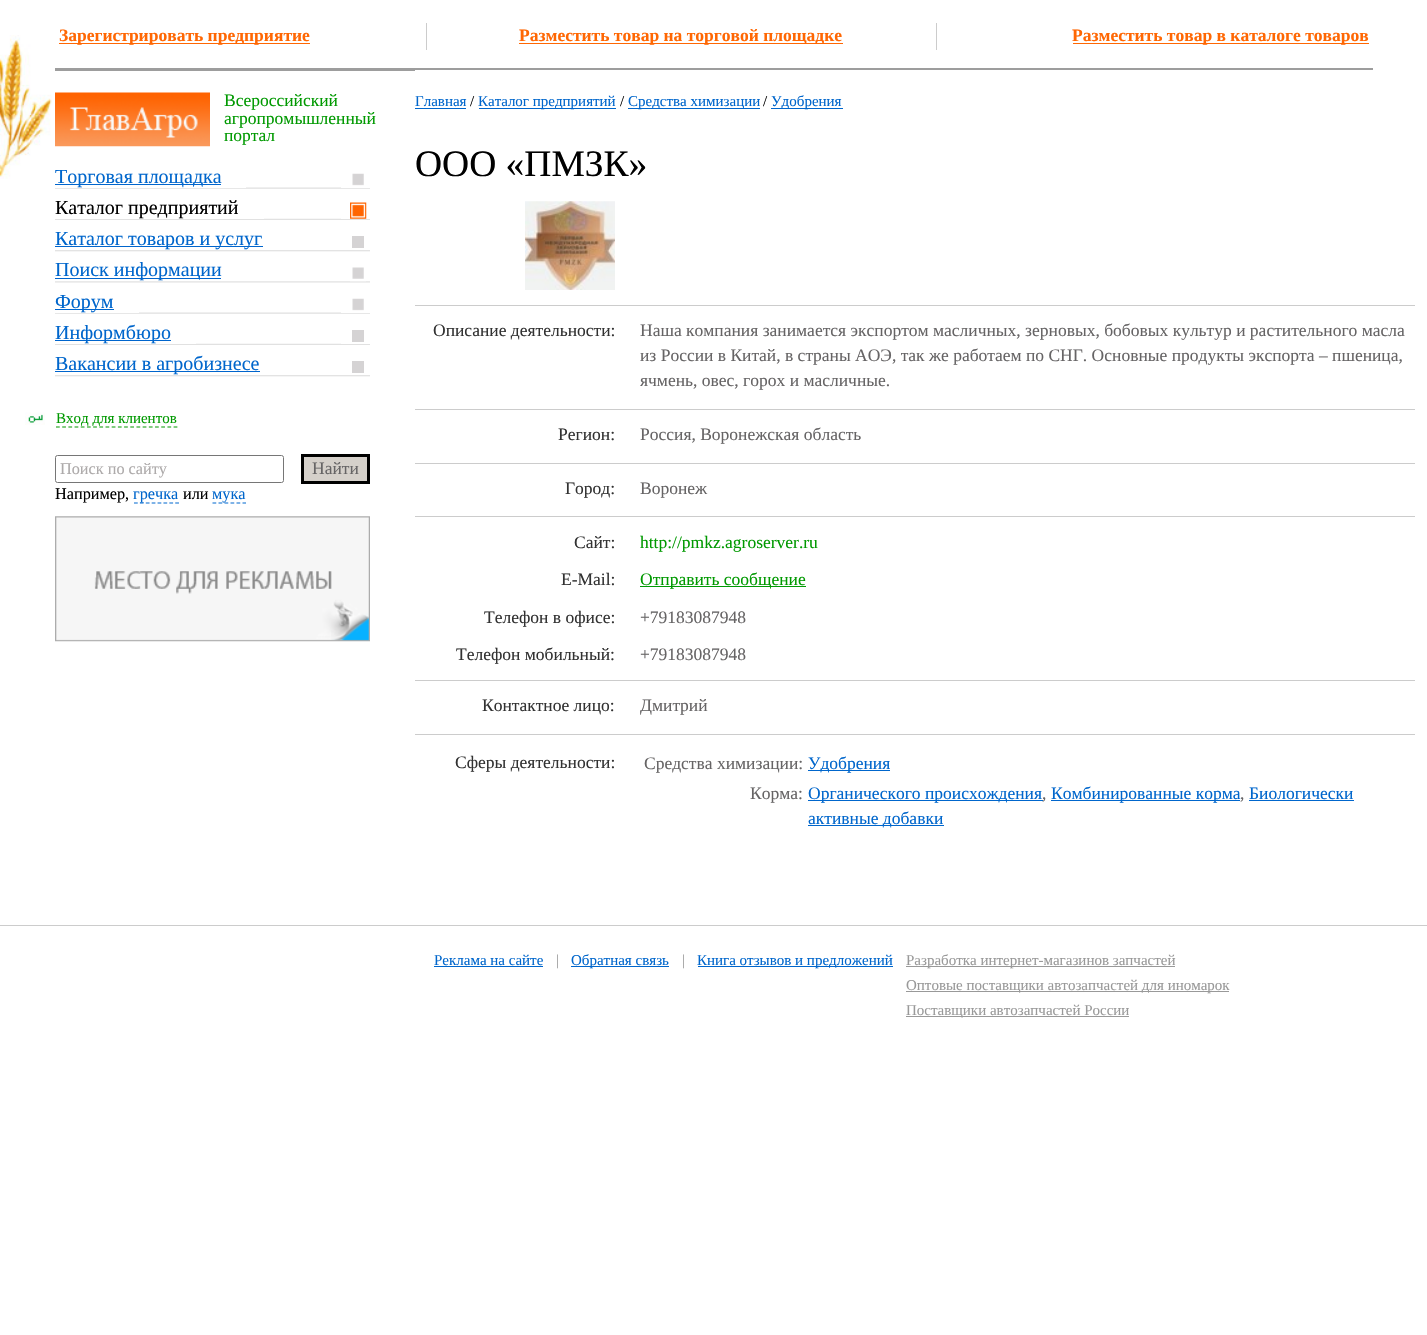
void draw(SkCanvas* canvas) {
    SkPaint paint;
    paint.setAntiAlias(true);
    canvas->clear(0xFFFFFFFF);
    canvas->drawImageRect(SkImages::DeferredFromEncodedData(SkData::MakeFromFileName("img1.png")), SkRect::MakeXYWH(0, 35, 53, 144), SkSamplingOptions());
    paint.setColor(0xFFFF6703);
    canvas->drawRect(SkRect::MakeXYWH(59, 43, 251, 1), paint);
    SkFont font1(fontMgr->matchFamilyStyle("Liberation Serif", SkFontStyle::Bold()), 17.5f);
    font1.setSubpixel(true);
    canvas->drawString("Зарегистрировать предприятие", 59, 41, font1, paint);
    paint.setColor(0xFFCCCCCC);
    canvas->drawRect(SkRect::MakeXYWH(426, 23, 1, 27), paint);
    paint.setColor(0xFFFF6703);
    canvas->drawRect(SkRect::MakeXYWH(519, 43, 324, 1), paint);
    canvas->drawString("Разместить товар на торговой площадке", 519, 41, font1, paint);
    paint.setColor(0xFFCCCCCC);
    canvas->drawRect(SkRect::MakeXYWH(936, 23, 1, 27), paint);
    paint.setColor(0xFFFF6703);
    canvas->drawRect(SkRect::MakeXYWH(1073, 43, 296, 1), paint);
    canvas->drawString("Разместить товар в каталоге товаров", 1072, 41, font1, paint);
    paint.setColor(0xFF9D9D9D);
    canvas->drawRect(SkRect::MakeXYWH(55, 68, 1318, 3), paint);
    canvas->drawImageRect(SkImages::DeferredFromEncodedData(SkData::MakeFromFileName("img2.png")), SkRect::MakeXYWH(55, 92, 155, 55), SkSamplingOptions());
    SkFont font2(fontMgr->matchFamilyStyle("Liberation Serif", SkFontStyle::Normal()), 17.5f);
    font2.setSubpixel(true);
    paint.setColor(0xFF009900);
    canvas->drawString("Всероссийский", 224, 106, font2, paint);
    canvas->drawString("агропромышленный", 224, 124, font2, paint);
    canvas->drawString("портал", 224, 141, font2, paint);
    canvas->drawImageRect(SkImages::DeferredFromEncodedData(SkData::MakeFromFileName("img3.png")), SkRect::MakeXYWH(55, 187, 315, 2), SkSamplingOptions());
    paint.setColor(0xFFFFFFFF);
    canvas->drawRect(SkRect::MakeXYWH(55, 187, 191, 1), paint);
    paint.setColor(0xFF0065CD);
    canvas->drawRect(SkRect::MakeXYWH(55, 184, 166, 1), paint);
    SkFont font3(fontMgr->matchFamilyStyle("Liberation Serif", SkFontStyle::Normal()), 20);
    font3.setSubpixel(true);
    paint.setColor(0xFF0066CC);
    canvas->drawString("Торговая площадка", 55, 183, font3, paint);
    paint.setColor(0xFFFFFFFF);
    canvas->drawRect(SkRect::MakeXYWH(341, 187, 29, 1), paint);
    canvas->drawImageRect(SkImages::DeferredFromEncodedData(SkData::MakeFromFileName("img4.png")), SkRect::MakeXYWH(352, 173, 12, 13), SkSamplingOptions());
    canvas->drawImageRect(SkImages::DeferredFromEncodedData(SkData::MakeFromFileName("img5.png")), SkRect::MakeXYWH(55, 218, 315, 2), SkSamplingOptions());
    canvas->drawRect(SkRect::MakeXYWH(55, 218, 209, 1), paint);
    paint.setColor(0xFF000000);
    canvas->drawString("Каталог предприятий", 55, 214, font3, paint);
    paint.setColor(0xFFFFFFFF);
    canvas->drawRect(SkRect::MakeXYWH(341, 218, 29, 1), paint);
    canvas->drawImageRect(SkImages::DeferredFromEncodedData(SkData::MakeFromFileName("img6.png")), SkRect::MakeXYWH(350, 202, 17, 17), SkSamplingOptions());
    canvas->drawImageRect(SkImages::DeferredFromEncodedData(SkData::MakeFromFileName("img7.png")), SkRect::MakeXYWH(55, 250, 315, 2), SkSamplingOptions());
    paint.setColor(0xFF0065CD);
    canvas->drawRect(SkRect::MakeXYWH(55, 246, 208, 1), paint);
    paint.setColor(0xFF0066CC);
    canvas->drawString("Каталог товаров и услуг", 55, 245, font3, paint);
    paint.setColor(0xFFD5D3D4);
    canvas->drawRect(SkRect::MakeXYWH(352, 236, 12, 12), paint);
    canvas->drawImageRect(SkImages::DeferredFromEncodedData(SkData::MakeFromFileName("img8.png")), SkRect::MakeXYWH(55, 281, 315, 2), SkSamplingOptions());
    paint.setColor(0xFF0065CD);
    canvas->drawRect(SkRect::MakeXYWH(55, 278, 166, 1), paint);
    paint.setColor(0xFF0066CC);
    canvas->drawString("Поиск информации", 55, 276, font3, paint);
    canvas->drawImageRect(SkImages::DeferredFromEncodedData(SkData::MakeFromFileName("img9.png")), SkRect::MakeXYWH(350, 267, 16, 15), SkSamplingOptions());
    canvas->drawImageRect(SkImages::DeferredFromEncodedData(SkData::MakeFromFileName("img3.png")), SkRect::MakeXYWH(55, 312, 315, 2), SkSamplingOptions());
    paint.setColor(0xFFFFFFFF);
    canvas->drawRect(SkRect::MakeXYWH(55, 312, 84, 1), paint);
    paint.setColor(0xFF0065CD);
    canvas->drawRect(SkRect::MakeXYWH(55, 309, 59, 1), paint);
    paint.setColor(0xFF0066CC);
    canvas->drawString("Форум", 55, 308, font3, paint);
    paint.setColor(0xFFFFFFFF);
    canvas->drawRect(SkRect::MakeXYWH(341, 312, 29, 1), paint);
    canvas->drawImageRect(SkImages::DeferredFromEncodedData(SkData::MakeFromFileName("img4.png")), SkRect::MakeXYWH(352, 298, 12, 13), SkSamplingOptions());
    canvas->drawImageRect(SkImages::DeferredFromEncodedData(SkData::MakeFromFileName("img5.png")), SkRect::MakeXYWH(55, 343, 315, 2), SkSamplingOptions());
    canvas->drawRect(SkRect::MakeXYWH(55, 343, 141, 1), paint);
    paint.setColor(0xFF0065CD);
    canvas->drawRect(SkRect::MakeXYWH(55, 340, 116, 1), paint);
    paint.setColor(0xFF0066CC);
    canvas->drawString("Информбюро", 55, 339, font3, paint);
    paint.setColor(0xFFFFFFFF);
    canvas->drawRect(SkRect::MakeXYWH(341, 343, 29, 1), paint);
    paint.setColor(0xFFD5D3D4);
    canvas->drawRect(SkRect::MakeXYWH(352, 330, 12, 12), paint);
    canvas->drawImageRect(SkImages::DeferredFromEncodedData(SkData::MakeFromFileName("img7.png")), SkRect::MakeXYWH(55, 375, 315, 2), SkSamplingOptions());
    paint.setColor(0xFF0065CD);
    canvas->drawRect(SkRect::MakeXYWH(55, 371, 205, 1), paint);
    paint.setColor(0xFF0066CC);
    canvas->drawString("Вакансии в агробизнесе", 55, 370, font3, paint);
    paint.setColor(0xFFD5D3D4);
    canvas->drawRect(SkRect::MakeXYWH(352, 361, 12, 12), paint);
    canvas->drawImageRect(SkImages::DeferredFromEncodedData(SkData::MakeFromFileName("img10.png")), SkRect::MakeXYWH(25, 412, 20, 13), SkSamplingOptions());
    SkFont font4(fontMgr->matchFamilyStyle("Liberation Serif", SkFontStyle::Normal()), 15);
    font4.setSubpixel(true);
    paint.setColor(0xFF009900);
    canvas->drawString("Вход для клиентов", 56, 423, font4, paint);
    paint.setStyle(SkPaint::kStroke_Style);
    paint.setStrokeWidth(1.2f);
    paint.setColor(0xFF039800);
    paint.setPathEffect(SkDashPathEffect::Make({{3.75f, 2.44f}}, 0));
    canvas->drawPath(SkPathBuilder().moveTo(56, 427).lineTo(177.5f, 427).detach(), paint);
    paint.setPathEffect(nullptr);
    paint.setStrokeWidth(1);
    paint.setColor(0xFF767676);
    canvas->drawRoundRect(SkRect::MakeXYWH(55.5f, 455.5f, 228, 27), 2, 2, paint);
    SkFont font5(fontMgr->matchFamilyStyle("Liberation Serif", SkFontStyle::Normal()), 16.25f);
    font5.setSubpixel(true);
    paint.setStyle(SkPaint::kFill_Style);
    paint.setColor(0xFFADAAAA);
    canvas->drawString("Поиск по сайту", 60, 474, font5, paint);
    paint.setColor(0xFFD5D0CA);
    canvas->drawRect(SkRect::MakeXYWH(302.5f, 455.5f, 66, 27), paint);
    paint.setStyle(SkPaint::kStroke_Style);
    paint.setStrokeWidth(3);
    paint.setColor(0xFF000000);
    canvas->drawRect(SkRect::MakeXYWH(302.5f, 455.5f, 66, 27), paint);
    paint.setStyle(SkPaint::kFill_Style);
    paint.setColor(0xFF666465);
    canvas->drawString("Найти", 312, 474, font2, paint);
    paint.setColor(0xFF000000);
    canvas->drawString("Например,", 55, 499, font5, paint);
    paint.setStyle(SkPaint::kStroke_Style);
    paint.setStrokeWidth(1.2f);
    paint.setColor(0xFF0068CF);
    paint.setPathEffect(SkDashPathEffect::Make({{3.75f, 2.14f}}, 0));
    canvas->drawPath(SkPathBuilder().moveTo(134, 503).lineTo(179, 503).detach(), paint);
    paint.setPathEffect(nullptr);
    paint.setStyle(SkPaint::kFill_Style);
    paint.setColor(0xFF0066CC);
    canvas->drawString("гречка", 133, 499, font5, paint);
    paint.setColor(0xFF000000);
    canvas->drawString("или", 183, 499, font5, paint);
    paint.setStyle(SkPaint::kStroke_Style);
    paint.setColor(0xFF0068CF);
    paint.setPathEffect(SkDashPathEffect::Make({{3.75f, 2.25f}}, 0));
    canvas->drawPath(SkPathBuilder().moveTo(212.5f, 503).lineTo(246, 503).detach(), paint);
    paint.setPathEffect(nullptr);
    paint.setStyle(SkPaint::kFill_Style);
    paint.setColor(0xFF0066CC);
    canvas->drawString("мука", 212, 499, font5, paint);
    canvas->drawImageRect(SkImages::DeferredFromEncodedData(SkData::MakeFromFileName("img11.png")), SkRect::MakeXYWH(55, 516, 315, 126), SkSamplingOptions());
    paint.setColor(0xFFFFFFFF);
    canvas->drawRect(SkRect::MakeXYWH(415, 70, 958, 1), paint);
    paint.setColor(0xFF0066CC);
    canvas->drawString("Главная", 415, 106, font4, paint);
    canvas->drawRect(SkRect::MakeXYWH(415, 108, 51, 1), paint);
    paint.setColor(0xFF000000);
    canvas->drawString("/", 470, 106, font4, paint);
    paint.setColor(0xFF0066CC);
    canvas->drawRect(SkRect::MakeXYWH(479, 108, 137, 1), paint);
    canvas->drawString("Каталог предприятий", 478, 106, font4, paint);
    paint.setColor(0xFF000000);
    canvas->drawString("/", 620, 106, font4, paint);
    paint.setColor(0xFF0066CC);
    canvas->drawRect(SkRect::MakeXYWH(628, 108, 132, 1), paint);
    canvas->drawString("Средства химизации", 628, 106, font4, paint);
    paint.setColor(0xFF000000);
    canvas->drawString("/", 763, 106, font4, paint);
    paint.setColor(0xFF0066CC);
    canvas->drawRect(SkRect::MakeXYWH(771, 108, 72, 1), paint);
    canvas->drawString("Удобрения", 771, 106, font4, paint);
    SkFont font6(fontMgr->matchFamilyStyle("Liberation Serif", SkFontStyle::Normal()), 37.5f);
    font6.setSubpixel(true);
    paint.setColor(0xFF000000);
    canvas->drawString("ООО «ПМЗК»", 415, 176, font6, paint);
    paint.setColor(0xFFCCCCCC);
    canvas->drawRect(SkRect::MakeXYWH(415, 305, 1000, 1), paint);
    canvas->drawImageRect(SkImages::DeferredFromEncodedData(SkData::MakeFromFileName("img12.png")), SkRect::MakeXYWH(525, 201, 90, 89), SkSamplingOptions());
    canvas->drawRect(SkRect::MakeXYWH(415, 409, 1000, 1), paint);
    paint.setColor(0xFF323232);
    canvas->drawString("Описание деятельности:", 433, 336, font2, paint);
    paint.setColor(0xFF666465);
    canvas->drawString("Наша компания занимается экспортом масличных, зерновых, бобовых культур и растительного масла", 640, 336, font2, paint);
    canvas->drawString("из России в Китай, в страны АОЭ, так же работаем по СНГ. Основные продукты экспорта – пшеница,", 640, 361, font2, paint);
    canvas->drawString("ячмень, овес, горох и масличные.", 640, 386, font2, paint);
    paint.setColor(0xFFCCCCCC);
    canvas->drawRect(SkRect::MakeXYWH(415, 463, 1000, 1), paint);
    paint.setColor(0xFF323232);
    canvas->drawString("Регион:", 558, 440, font2, paint);
    paint.setColor(0xFF666465);
    canvas->drawString("Россия, Воронежская область", 640, 440, font2, paint);
    paint.setColor(0xFFCCCCCC);
    canvas->drawRect(SkRect::MakeXYWH(415, 516, 1000, 1), paint);
    paint.setColor(0xFF323232);
    canvas->drawString("Город:", 565, 494, font2, paint);
    paint.setColor(0xFF666465);
    canvas->drawString("Воронеж", 640, 494, font2, paint);
    paint.setColor(0xFFCCCCCC);
    canvas->drawRect(SkRect::MakeXYWH(415, 680, 1000, 1), paint);
    paint.setColor(0xFF323232);
    canvas->drawString("Сайт:", 574, 548, font2, paint);
    paint.setColor(0xFF009900);
    canvas->drawString("http://pmkz.agroserver.ru", 640, 548, font2, paint);
    paint.setColor(0xFF323232);
    canvas->drawString("E-Mail:", 561, 585, font2, paint);
    paint.setColor(0xFF009A04);
    canvas->drawRect(SkRect::MakeXYWH(640, 586, 166, 1), paint);
    paint.setColor(0xFF009900);
    canvas->drawString("Отправить сообщение", 640, 585, font2, paint);
    paint.setColor(0xFF323232);
    canvas->drawString("Телефон в офисе:", 484, 623, font2, paint);
    paint.setColor(0xFF666465);
    canvas->drawString("+79183087948", 640, 623, font2, paint);
    paint.setColor(0xFF323232);
    canvas->drawString("Телефон мобильный:", 456, 660, font2, paint);
    paint.setColor(0xFF666465);
    canvas->drawString("+79183087948", 640, 660, font2, paint);
    paint.setColor(0xFFCCCCCC);
    canvas->drawRect(SkRect::MakeXYWH(415, 734, 1000, 1), paint);
    paint.setColor(0xFF323232);
    canvas->drawString("Контактное лицо:", 482, 711, font2, paint);
    paint.setColor(0xFF666465);
    canvas->drawString("Дмитрий", 640, 711, font2, paint);
    paint.setColor(0xFF323232);
    canvas->drawString("Сферы деятельности:", 455, 768, font2, paint);
    paint.setColor(0xFF666465);
    canvas->drawString("Средства химизации:", 644, 769, font2, paint);
    paint.setColor(0xFF0066CC);
    canvas->drawRect(SkRect::MakeXYWH(808, 770, 82, 1), paint);
    canvas->drawString("Удобрения", 808, 769, font2, paint);
    paint.setColor(0xFF666465);
    canvas->drawString("Корма:", 750, 799, font2, paint);
    paint.setColor(0xFF0066CC);
    canvas->drawRect(SkRect::MakeXYWH(808, 800, 235, 1), paint);
    canvas->drawString("Органического происхождения", 808, 799, font2, paint);
    paint.setColor(0xFF666465);
    canvas->drawString(",", 1042, 799, font2, paint);
    paint.setColor(0xFF0066CC);
    canvas->drawRect(SkRect::MakeXYWH(1051, 800, 189, 1), paint);
    canvas->drawString("Комбинированные корма", 1051, 799, font2, paint);
    paint.setColor(0xFF666465);
    canvas->drawString(",", 1240, 799, font2, paint);
    paint.setColor(0xFF0066CC);
    canvas->drawString("Биологически", 1249, 799, font2, paint);
    canvas->drawRect(SkRect::MakeXYWH(1249, 800, 105, 1), paint);
    canvas->drawRect(SkRect::MakeXYWH(808, 825, 136, 1), paint);
    canvas->drawString("активные добавки", 808, 824, font2, paint);
    paint.setColor(0xFFCCCCCC);
    canvas->drawRect(SkRect::MakeXYWH(0, 925, 1427, 1), paint);
    paint.setColor(0xFF0066CC);
    canvas->drawString("Реклама на сайте", 434, 965, font4, paint);
    canvas->drawRect(SkRect::MakeXYWH(434, 966, 109, 1), paint);
    paint.setColor(0xFF999999);
    canvas->drawString("|", 556, 965, font4, paint);
    paint.setColor(0xFF0066CC);
    canvas->drawRect(SkRect::MakeXYWH(571, 966, 98, 1), paint);
    canvas->drawString("Обратная связь", 571, 965, font4, paint);
    paint.setColor(0xFF999999);
    canvas->drawString("|", 682, 965, font4, paint);
    paint.setColor(0xFF0066CC);
    canvas->drawRect(SkRect::MakeXYWH(698, 966, 195, 1), paint);
    canvas->drawString("Книга отзывов и предложений", 697, 965, font4, paint);
    paint.setColor(0xFF999999);
    canvas->drawRect(SkRect::MakeXYWH(906, 966, 269, 1), paint);
    canvas->drawString("Разработка интернет-магазинов запчастей", 906, 965, font4, paint);
    canvas->drawRect(SkRect::MakeXYWH(906, 991, 323, 1), paint);
    canvas->drawString("Оптовые поставщики автозапчастей для иномарок", 906, 990, font4, paint);
    canvas->drawRect(SkRect::MakeXYWH(906, 1016, 223, 1), paint);
    canvas->drawString("Поставщики автозапчастей России", 906, 1015, font4, paint);
}
